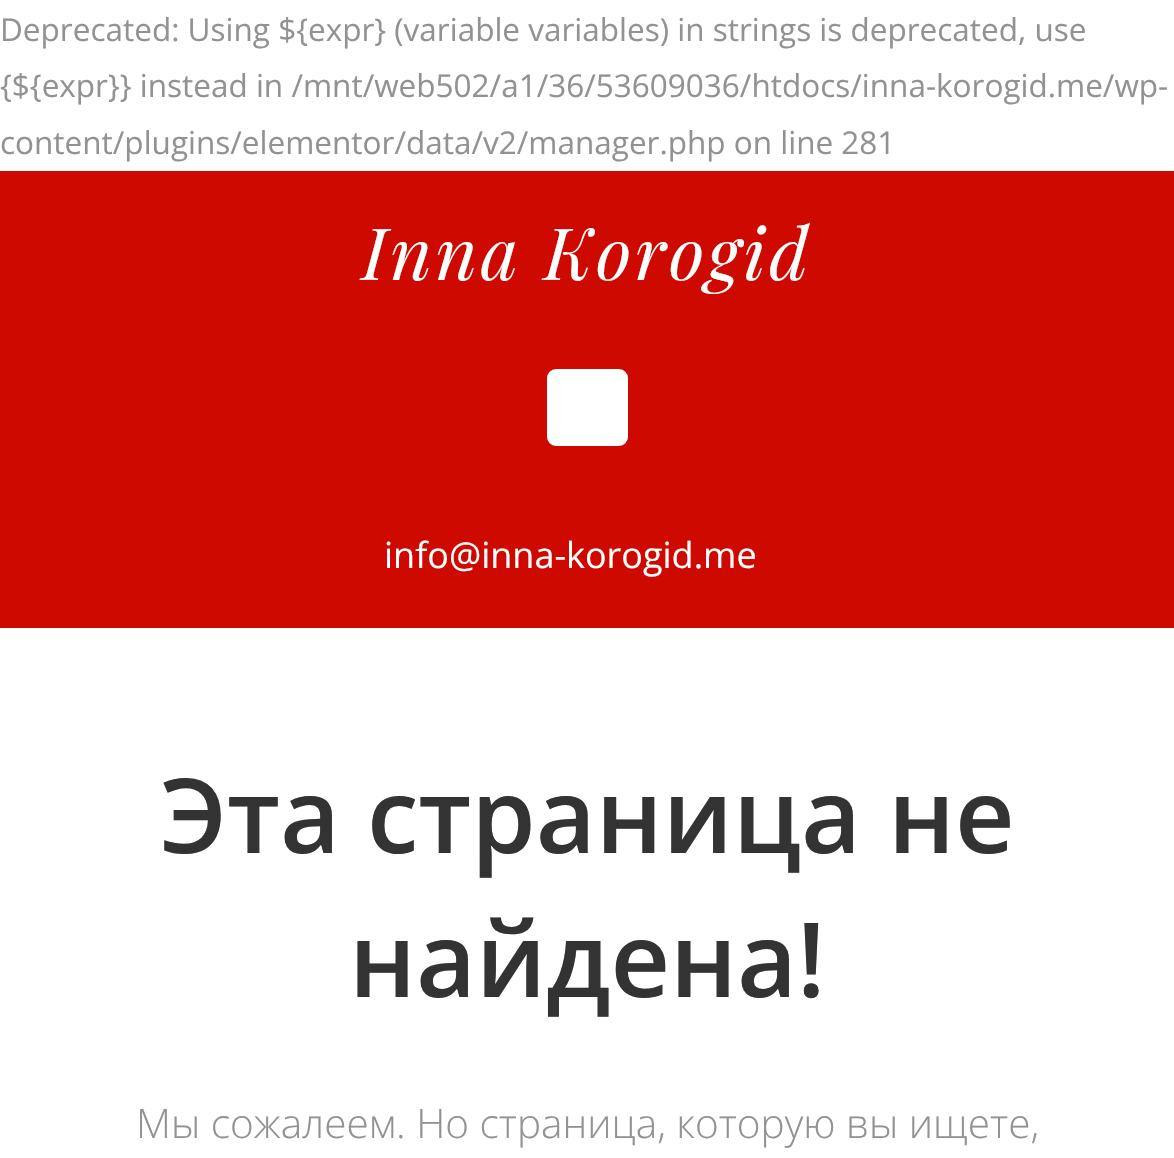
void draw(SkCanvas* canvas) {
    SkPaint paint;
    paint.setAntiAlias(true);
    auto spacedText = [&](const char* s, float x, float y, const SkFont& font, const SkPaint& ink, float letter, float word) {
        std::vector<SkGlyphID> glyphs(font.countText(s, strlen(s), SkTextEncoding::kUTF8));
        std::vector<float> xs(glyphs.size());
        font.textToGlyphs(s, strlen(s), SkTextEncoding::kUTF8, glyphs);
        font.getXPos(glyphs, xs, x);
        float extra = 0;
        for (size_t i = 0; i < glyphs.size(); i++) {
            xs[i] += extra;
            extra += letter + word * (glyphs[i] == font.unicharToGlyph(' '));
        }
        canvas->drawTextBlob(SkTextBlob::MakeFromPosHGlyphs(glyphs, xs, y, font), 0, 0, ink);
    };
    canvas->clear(0xFFFFFFFF);
    SkFont font1(fontMgr->matchFamilyStyle("Open Sans", SkFontStyle::Normal()), 31.5f);
    font1.setSubpixel(true);
    paint.setColor(0xFF929292);
    canvas->drawString("Deprecated: Using ${expr} (variable variables) in strings is deprecated, use", 0, 41, font1, paint);
    canvas->drawString("{${expr}} instead in /mnt/web502/a1/36/53609036/htdocs/inna-korogid.me/wp-", 0, 97, font1, paint);
    canvas->drawString("content/plugins/elementor/data/v2/manager.php on line 281", 0, 154, font1, paint);
    paint.setColor(0xFFCE0A00);
    canvas->drawRect(SkRect::MakeXYWH(0, 171, 1174, 457), paint);
    SkFont font2(fontMgr->matchFamilyStyle("Playfair Display", SkFontStyle::Italic()), 72);
    font2.setSubpixel(true);
    paint.setColor(0xFFFFFFFF);
    spacedText("Inna Korogid", 362, 280, font2, paint, 3.6f, 0);
    canvas->drawRoundRect(SkRect::MakeXYWH(548, 370, 79, 75), 8, 8, paint);
    paint.setStyle(SkPaint::kStroke_Style);
    paint.setStrokeWidth(2);
    canvas->drawRoundRect(SkRect::MakeXYWH(548, 370, 79, 75), 8, 8, paint);
    SkFont font3(fontMgr->matchFamilyStyle("Open Sans", SkFontStyle::Normal()), 36);
    font3.setSubpixel(true);
    paint.setStyle(SkPaint::kFill_Style);
    canvas->drawString("info@inna-korogid.me", 384, 568, font3, paint);
    SkFont font4(fontMgr->matchFamilyStyle("Open Sans", SkFontStyle(600, SkFontStyle::kNormal_Width, SkFontStyle::kUpright_Slant)), 103.5f);
    font4.setSubpixel(true);
    paint.setColor(0xFF333333);
    canvas->drawString("Эта страница не", 160, 853, font4, paint);
    canvas->drawString("найдена!", 349, 997, font4, paint);
    SkFont font5(fontMgr->matchFamilyStyle("Open Sans", SkFontStyle(300, SkFontStyle::kNormal_Width, SkFontStyle::kUpright_Slant)), 40.5f);
    font5.setSubpixel(true);
    paint.setColor(0xFF929292);
    canvas->drawString("Мы сожалеем. Но страница, которую вы ищете,", 136, 1138, font5, paint);
}
